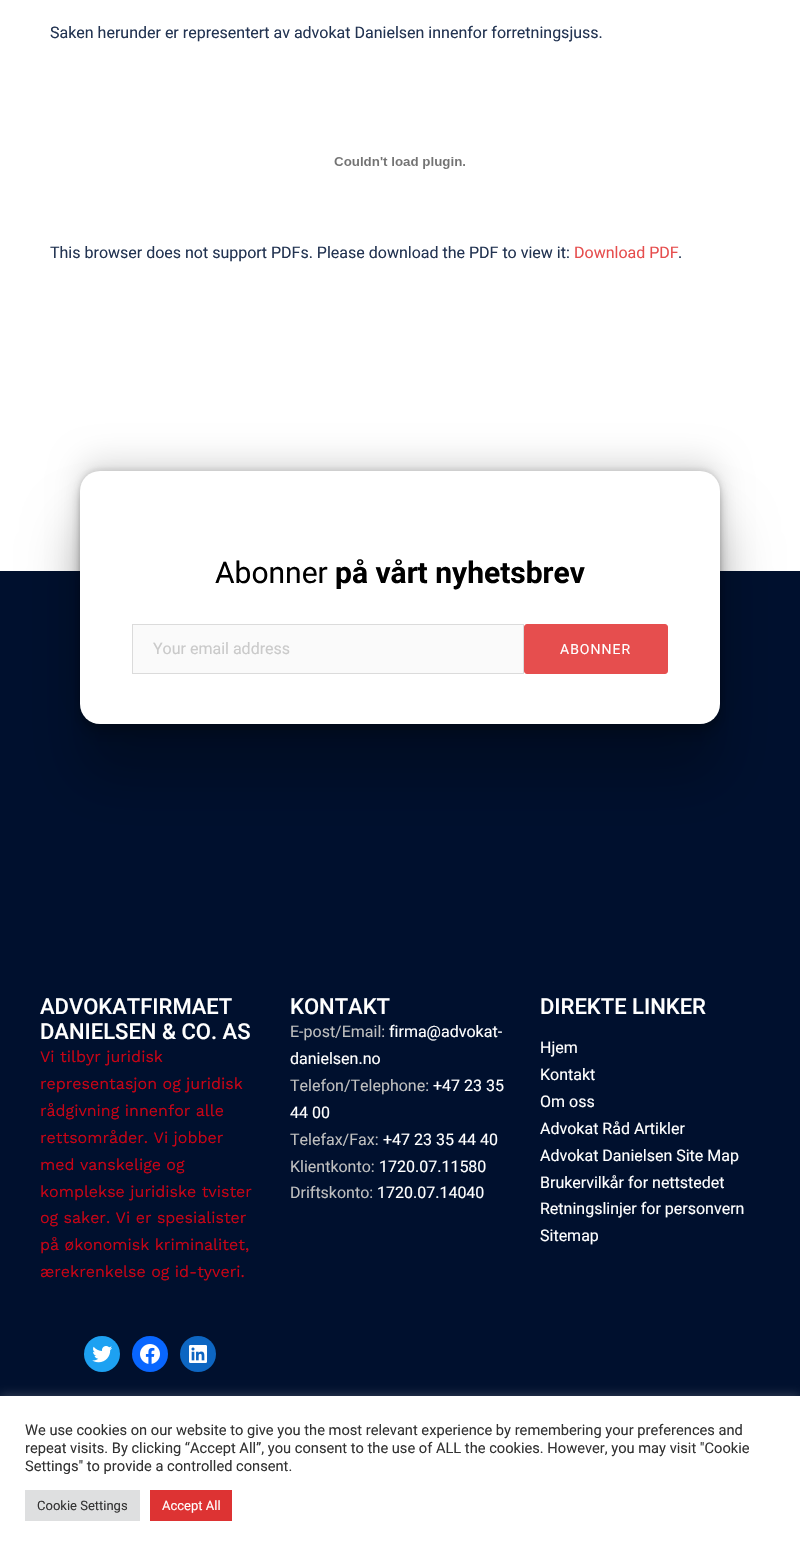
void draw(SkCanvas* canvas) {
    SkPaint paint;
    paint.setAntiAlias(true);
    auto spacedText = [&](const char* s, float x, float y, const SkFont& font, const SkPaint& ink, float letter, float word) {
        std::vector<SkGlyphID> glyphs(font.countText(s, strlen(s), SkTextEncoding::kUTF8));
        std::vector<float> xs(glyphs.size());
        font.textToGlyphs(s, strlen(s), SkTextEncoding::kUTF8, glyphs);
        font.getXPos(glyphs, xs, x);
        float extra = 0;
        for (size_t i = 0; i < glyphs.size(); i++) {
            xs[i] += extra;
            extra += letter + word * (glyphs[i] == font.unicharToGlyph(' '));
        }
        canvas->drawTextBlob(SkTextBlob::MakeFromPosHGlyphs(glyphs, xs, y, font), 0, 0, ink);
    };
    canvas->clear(0xFFFFFFFF);
    SkFont font1(fontMgr->matchFamilyStyle("Roboto", SkFontStyle::Normal()), 16);
    font1.setSubpixel(true);
    paint.setColor(0xFF233452);
    canvas->drawString("Saken herunder er representert av advokat Danielsen innenfor forretningsjuss.", 50, 38, font1, paint);
    canvas->drawImageRect(SkImages::DeferredFromEncodedData(SkData::MakeFromFileName("img1.png")), SkRect::MakeXYWH(334, 157, 131, 12), SkSamplingOptions());
    canvas->drawString("This browser does not support PDFs. Please download the PDF to view it:", 50, 258, font1, paint);
    paint.setColor(0xFFE64E4E);
    canvas->drawString("Download PDF", 574, 258, font1, paint);
    paint.setColor(0xFF233452);
    canvas->drawString(".", 678, 258, font1, paint);
    paint.setColor(0xFF00102E);
    canvas->drawRect(SkRect::MakeXYWH(0, 571, 800, 825), paint);
    paint.setColor(0x17000000);
    paint.setMaskFilter(SkMaskFilter::MakeBlur(kNormal_SkBlurStyle, 2.5f));
    canvas->drawRoundRect(SkRect::MakeXYWH(80, 468, 640, 253), 20, 20, paint);
    paint.setMaskFilter(nullptr);
    paint.setColor(0x2B000000);
    paint.setMaskFilter(SkMaskFilter::MakeBlur(kNormal_SkBlurStyle, 6.5f));
    canvas->drawRoundRect(SkRect::MakeXYWH(80, 483, 640, 253), 20, 20, paint);
    paint.setMaskFilter(nullptr);
    paint.setColor(0x1F000000);
    paint.setMaskFilter(SkMaskFilter::MakeBlur(kNormal_SkBlurStyle, 3));
    canvas->drawRoundRect(SkRect::MakeXYWH(80, 475, 640, 253), 20, 20, paint);
    paint.setMaskFilter(nullptr);
    paint.setMaskFilter(SkMaskFilter::MakeBlur(kNormal_SkBlurStyle, 15));
    canvas->drawRoundRect(SkRect::MakeXYWH(80, 459, 640, 253), 20, 20, paint);
    paint.setMaskFilter(nullptr);
    paint.setColor(0x40000000);
    paint.setMaskFilter(SkMaskFilter::MakeBlur(kNormal_SkBlurStyle, 27.5f));
    canvas->drawRoundRect(SkRect::MakeXYWH(80, 525, 640, 253), 20, 20, paint);
    paint.setMaskFilter(nullptr);
    paint.setColor(0xFFFFFFFF);
    canvas->drawRoundRect(SkRect::MakeXYWH(80, 471, 640, 253), 20, 20, paint);
    SkFont font2(fontMgr->matchFamilyStyle("Roboto", SkFontStyle::Normal()), 30);
    font2.setSubpixel(true);
    paint.setColor(0xFF000000);
    canvas->drawString("Abonner", 215, 583, font2, paint);
    SkFont font3(fontMgr->matchFamilyStyle("Roboto", SkFontStyle::Bold()), 30);
    font3.setSubpixel(true);
    canvas->drawString("på vårt nyhetsbrev", 335, 583, font3, paint);
    paint.setColor(0xFFFAFAFA);
    canvas->drawRect(SkRect::MakeXYWH(132.5f, 624.5f, 391, 49), paint);
    paint.setStyle(SkPaint::kStroke_Style);
    paint.setStrokeWidth(1);
    paint.setColor(0xFFDBDBDB);
    canvas->drawRect(SkRect::MakeXYWH(132.5f, 624.5f, 391, 49), paint);
    paint.setStyle(SkPaint::kFill_Style);
    paint.setColor(0xFFCACACA);
    canvas->drawString("Your email address", 153, 654, font1, paint);
    paint.setColor(0xFFE64E4E);
    canvas->drawRoundRect(SkRect::MakeXYWH(524.5f, 624.5f, 143, 49), 2.5f, 2.5f, paint);
    paint.setStyle(SkPaint::kStroke_Style);
    canvas->drawRoundRect(SkRect::MakeXYWH(524.5f, 624.5f, 143, 49), 2.5f, 2.5f, paint);
    SkFont font4(fontMgr->matchFamilyStyle("Roboto", SkFontStyle::Normal()), 14);
    font4.setSubpixel(true);
    paint.setStyle(SkPaint::kFill_Style);
    paint.setColor(0xFFFFFFFF);
    spacedText("ABONNER", 560, 654, font4, paint, 1, 0);
    SkFont font5(fontMgr->matchFamilyStyle("Roboto", SkFontStyle(500, SkFontStyle::kNormal_Width, SkFontStyle::kUpright_Slant)), 22);
    font5.setSubpixel(true);
    canvas->drawString("ADVOKATFIRMAET", 40, 1014, font5, paint);
    canvas->drawString("DANIELSEN & CO. AS", 40, 1039, font5, paint);
    SkFont font6(fontMgr->matchFamilyStyle("Work Sans", SkFontStyle::Normal()), 16);
    font6.setSubpixel(true);
    paint.setColor(0xFFC80315);
    canvas->drawString("Vi tilbyr juridisk", 40, 1062, font6, paint);
    canvas->drawString("representasjon og juridisk", 40, 1089, font6, paint);
    canvas->drawString("rådgivning innenfor alle", 40, 1116, font6, paint);
    canvas->drawString("rettsområder. Vi jobber", 40, 1143, font6, paint);
    canvas->drawString("med vanskelige og", 40, 1170, font6, paint);
    canvas->drawString("komplekse juridiske tvister", 40, 1197, font6, paint);
    canvas->drawString("og saker. Vi er spesialister", 40, 1223, font6, paint);
    canvas->drawString("på økonomisk kriminalitet,", 40, 1250, font6, paint);
    canvas->drawString("ærekrenkelse og id-tyveri.", 40, 1277, font6, paint);
    paint.setColor(0xFF1DA1F2);
    canvas->drawCircle(102, 1354, 18, paint);
    canvas->drawImageRect(SkImages::DeferredFromEncodedData(SkData::MakeFromFileName("img2.png")), SkRect::MakeXYWH(92, 1346, 20, 17), SkSamplingOptions());
    paint.setColor(0xFF0866FF);
    canvas->drawCircle(150, 1354, 18, paint);
    canvas->drawImageRect(SkImages::DeferredFromEncodedData(SkData::MakeFromFileName("img3.png")), SkRect::MakeXYWH(140, 1344, 20, 20), SkSamplingOptions());
    paint.setColor(0xFF0D66C2);
    canvas->drawCircle(198, 1354, 18, paint);
    canvas->drawImageRect(SkImages::DeferredFromEncodedData(SkData::MakeFromFileName("img4.png")), SkRect::MakeXYWH(189, 1345, 18, 18), SkSamplingOptions());
    paint.setColor(0xFFFFFFFF);
    canvas->drawString("KONTAKT", 290, 1014, font5, paint);
    paint.setColor(0xFFBFBFBF);
    canvas->drawString("E-post/Email:", 290, 1037, font1, paint);
    paint.setColor(0xFFFFFFFF);
    canvas->drawString("firma@advokat-", 389, 1037, font1, paint);
    canvas->drawString("danielsen.no", 290, 1064, font1, paint);
    paint.setColor(0xFFBFBFBF);
    canvas->drawString("Telefon/Telephone:", 290, 1091, font1, paint);
    paint.setColor(0xFFFFFFFF);
    canvas->drawString("+47 23 35", 433, 1091, font1, paint);
    canvas->drawString("44 00", 290, 1118, font1, paint);
    paint.setColor(0xFFBFBFBF);
    canvas->drawString("Telefax/Fax:", 290, 1145, font1, paint);
    paint.setColor(0xFFFFFFFF);
    canvas->drawString("+47 23 35 44 40", 383, 1145, font1, paint);
    paint.setColor(0xFFBFBFBF);
    canvas->drawString("Klientkonto:", 290, 1172, font1, paint);
    paint.setColor(0xFFFFFFFF);
    canvas->drawString("1720.07.11580", 379, 1172, font1, paint);
    paint.setColor(0xFFBFBFBF);
    canvas->drawString("Driftskonto:", 290, 1198, font1, paint);
    paint.setColor(0xFFFFFFFF);
    canvas->drawString("1720.07.14040", 377, 1198, font1, paint);
    canvas->drawString("DIREKTE LINKER", 540, 1014, font5, paint);
    canvas->drawString("Hjem", 540, 1053, font1, paint);
    canvas->drawString("Kontakt", 540, 1080, font1, paint);
    canvas->drawString("Om oss", 540, 1107, font1, paint);
    canvas->drawString("Advokat Råd Artikler", 540, 1134, font1, paint);
    canvas->drawString("Advokat Danielsen Site Map", 540, 1161, font1, paint);
    canvas->drawString("Brukervilkår for nettstedet", 540, 1188, font1, paint);
    canvas->drawString("Retningslinjer for personvern", 540, 1214, font1, paint);
    canvas->drawString("Sitemap", 540, 1241, font1, paint);
    paint.setColor(0x4DACABAB);
    paint.setMaskFilter(SkMaskFilter::MakeBlur(kNormal_SkBlurStyle, 5));
    canvas->drawRect(SkRect::MakeXYWH(0, 1395, 800, 155), paint);
    paint.setMaskFilter(nullptr);
    paint.setColor(0xFFFFFFFF);
    canvas->drawRect(SkRect::MakeXYWH(0, 1396, 800, 155), paint);
    SkFont font7(fontMgr->matchFamilyStyle("Roboto", SkFontStyle::Normal()), 14.65f);
    font7.setSubpixel(true);
    paint.setColor(0xFF333333);
    canvas->drawString("We use cookies on our website to give you the most relevant experience by remembering your preferences and", 25, 1435, font7, paint);
    canvas->drawString("repeat visits. By clicking “Accept All”, you consent to the use of ALL the cookies. However, you may visit \"Cookie", 25, 1453, font7, paint);
    canvas->drawString("Settings\" to provide a controlled consent.", 25, 1471, font7, paint);
    paint.setColor(0xFFDEDFE0);
    canvas->drawRect(SkRect::MakeXYWH(25, 1490, 115, 31), paint);
    SkFont font8(fontMgr->matchFamilyStyle("Roboto", SkFontStyle::Normal()), 13);
    font8.setSubpixel(true);
    paint.setColor(0xFF333333);
    canvas->drawString("Cookie Settings", 37, 1510, font8, paint);
    paint.setColor(0xFFDD3333);
    canvas->drawRect(SkRect::MakeXYWH(150, 1490, 82, 31), paint);
    paint.setColor(0xFFFFFFFF);
    canvas->drawString("Accept All", 162, 1510, font8, paint);
}
